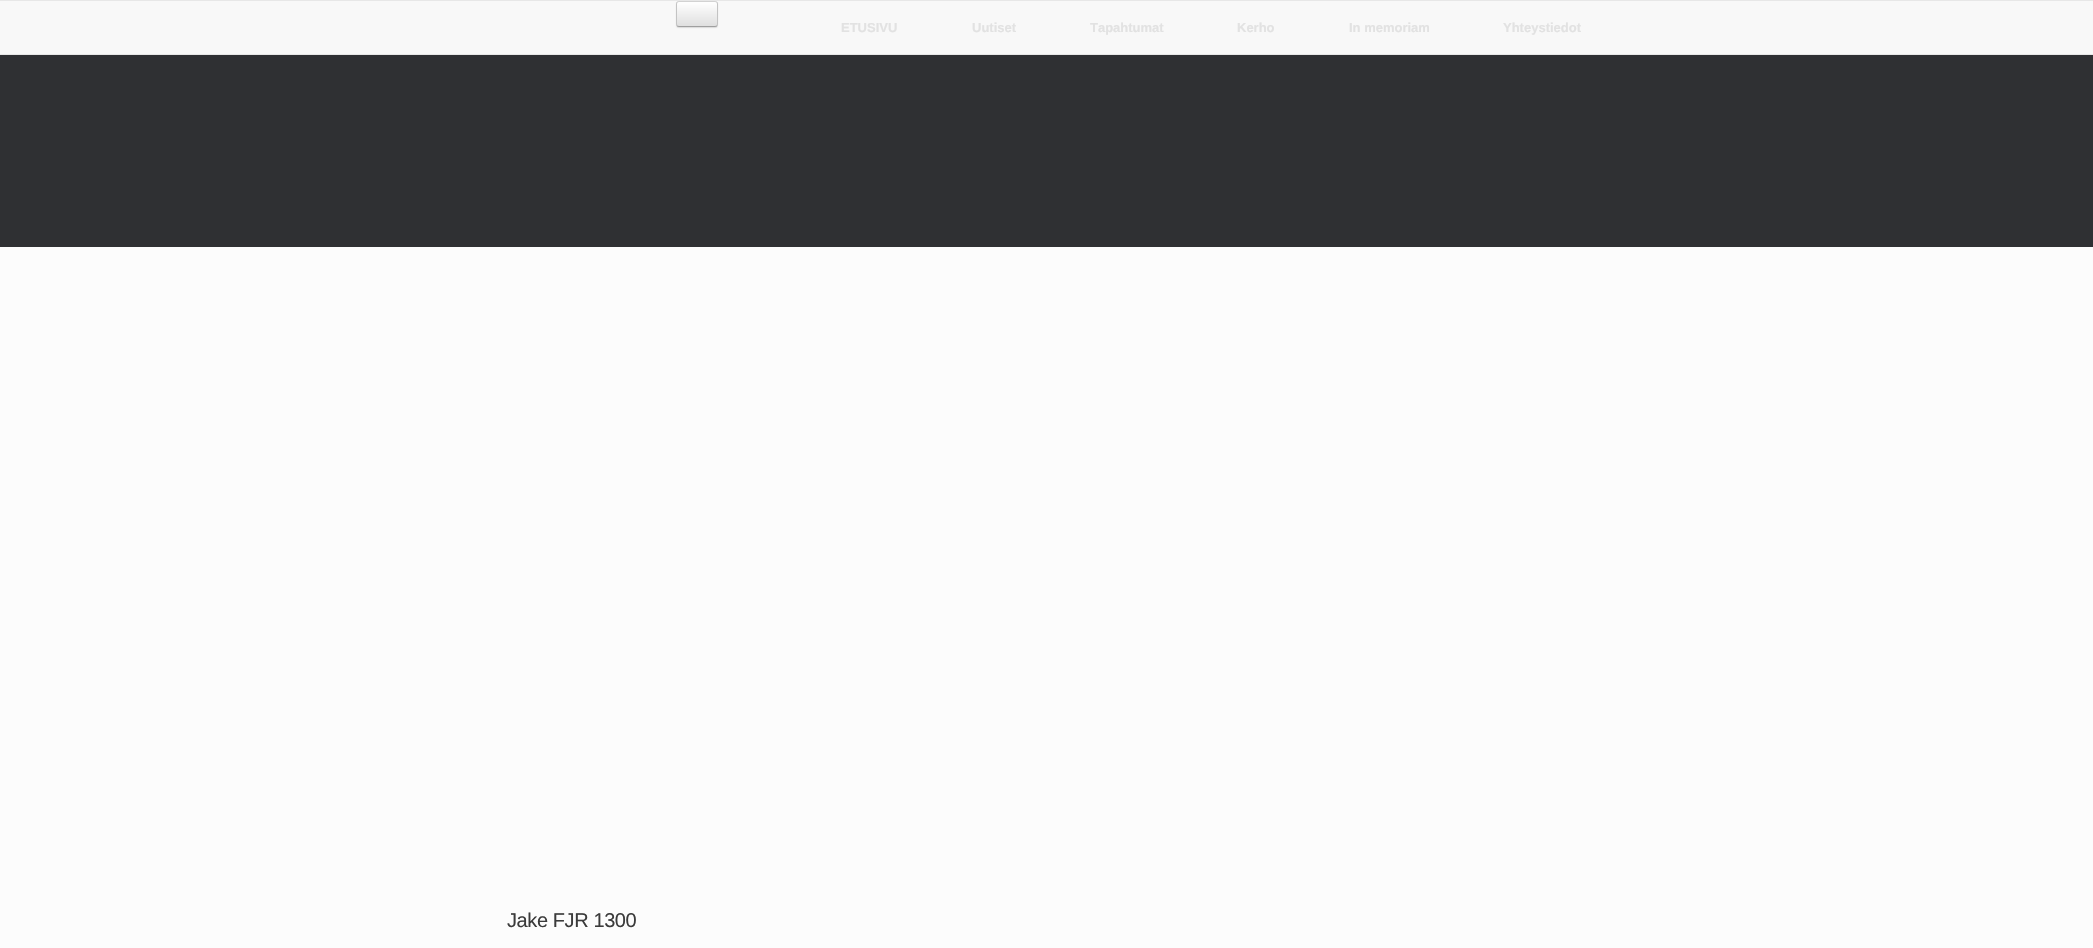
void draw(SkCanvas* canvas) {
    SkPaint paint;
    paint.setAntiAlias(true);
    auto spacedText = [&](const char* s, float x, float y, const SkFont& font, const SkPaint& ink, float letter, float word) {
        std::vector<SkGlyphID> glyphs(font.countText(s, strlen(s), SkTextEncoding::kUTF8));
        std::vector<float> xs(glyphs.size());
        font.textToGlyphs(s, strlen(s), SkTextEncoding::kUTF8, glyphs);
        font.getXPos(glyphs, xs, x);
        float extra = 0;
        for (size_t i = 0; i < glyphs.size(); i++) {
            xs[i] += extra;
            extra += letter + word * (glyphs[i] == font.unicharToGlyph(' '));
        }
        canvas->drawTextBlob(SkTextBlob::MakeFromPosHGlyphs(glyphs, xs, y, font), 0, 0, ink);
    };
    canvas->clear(0xFF2F3033);
    paint.setColor(0xFFF8F8F8);
    canvas->drawRect(SkRect::MakeXYWH(-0.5f, 0.5f, 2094, 54), paint);
    paint.setStyle(SkPaint::kStroke_Style);
    paint.setStrokeWidth(1);
    paint.setColor(0xFFE7E7E7);
    canvas->drawRect(SkRect::MakeXYWH(-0.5f, 0.5f, 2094, 54), paint);
    paint.setStyle(SkPaint::kFill_Style);
    paint.setColor(0x1F000000);
    paint.setMaskFilter(SkMaskFilter::MakeBlur(kNormal_SkBlurStyle, 0.5f));
    canvas->drawRoundRect(SkRect::MakeXYWH(676, 2, 42, 26), 3, 3, paint);
    paint.setMaskFilter(nullptr);
    canvas->save();
    canvas->clipPath(SkPathBuilder().moveTo(679, 1).lineTo(715, 1).cubicTo(716.5f, 1, 718, 2.5f, 718, 4).lineTo(718, 24).cubicTo(718, 25.5f, 716.5f, 27, 715, 27).lineTo(679, 27).cubicTo(677.5f, 27, 676, 25.5f, 676, 24).lineTo(676, 4).cubicTo(676, 2.5f, 677.5f, 1, 679, 1).close().detach(), true);
    {
        const SkColor colors[] = {0xFFDFDFDF, 0xFFFFFFFF};
        const float stops[] = {0, 1};
        const SkPoint ends[] = {{677, 26}, {677, 2}};
        paint.setShader(SkGradientShader::MakeLinear(ends, colors, stops, 2, SkTileMode::kClamp));
        paint.setAlpha(255);
    }
    canvas->drawRect(SkRect::MakeXYWH(676, 2, 42, 24), paint);
    canvas->restore();
    paint.setShader(nullptr);
    paint.setColor(0xFFFEFEFE);
    canvas->drawPath(SkPathBuilder().moveTo(679, 3).lineTo(716, 3).lineTo(717, 6).cubicTo(717, 0, 715, 2, 709, 2).lineTo(685, 2).cubicTo(683, 2, 677, 1, 677, 4).cubicTo(677, 4, 678, 3, 679, 3).close().detach(), paint);
    paint.setStyle(SkPaint::kStroke_Style);
    paint.setColor(0xFFD2D2D2);
    canvas->drawPath(SkPathBuilder().moveTo(677, 2).lineTo(679, 1.5f).lineTo(715, 1.5f).lineTo(717, 2).detach(), paint);
    paint.setColor(0xFFC3C3C3);
    canvas->drawPath(SkPathBuilder().moveTo(717, 2).cubicTo(717, 2.5f, 717.5f, 3.5f, 717.5f, 4).lineTo(717.5f, 24).cubicTo(717.5f, 24.5f, 717, 25.5f, 717, 26).detach(), paint);
    paint.setColor(0xFF9F9F9F);
    canvas->drawPath(SkPathBuilder().moveTo(717, 26).lineTo(715, 26.5f).lineTo(679, 26.5f).lineTo(677, 26).detach(), paint);
    paint.setColor(0xFFC3C3C3);
    canvas->drawPath(SkPathBuilder().moveTo(677, 26).cubicTo(677, 25.5f, 676.5f, 24.5f, 676.5f, 24).lineTo(676.5f, 4).cubicTo(676.5f, 3.5f, 677, 2.5f, 677, 2).detach(), paint);
    SkFont font1(fontMgr->matchFamilyStyle("Liberation Sans", SkFontStyle::Bold()), 13);
    font1.setSubpixel(true);
    paint.setStyle(SkPaint::kFill_Style);
    paint.setColor(0xFFE2E2E2);
    canvas->drawString("ETUSIVU", 841, 32, font1, paint);
    canvas->drawString("Uutiset", 972, 32, font1, paint);
    canvas->drawString("Tapahtumat", 1090, 32, font1, paint);
    canvas->drawString("Kerho", 1237, 32, font1, paint);
    canvas->drawString("In memoriam", 1349, 32, font1, paint);
    canvas->drawString("Yhteystiedot", 1503, 32, font1, paint);
    paint.setColor(0xFFFCFCFC);
    canvas->drawRect(SkRect::MakeXYWH(0, 247, 2093, 701), paint);
    SkFont font2(fontMgr->matchFamilyStyle("Liberation Sans", SkFontStyle::Normal()), 20);
    font2.setSubpixel(true);
    paint.setColor(0xFF3B3B3B);
    spacedText("Jake FJR 1300", 507, 927, font2, paint, -0.4f, 0);
}
